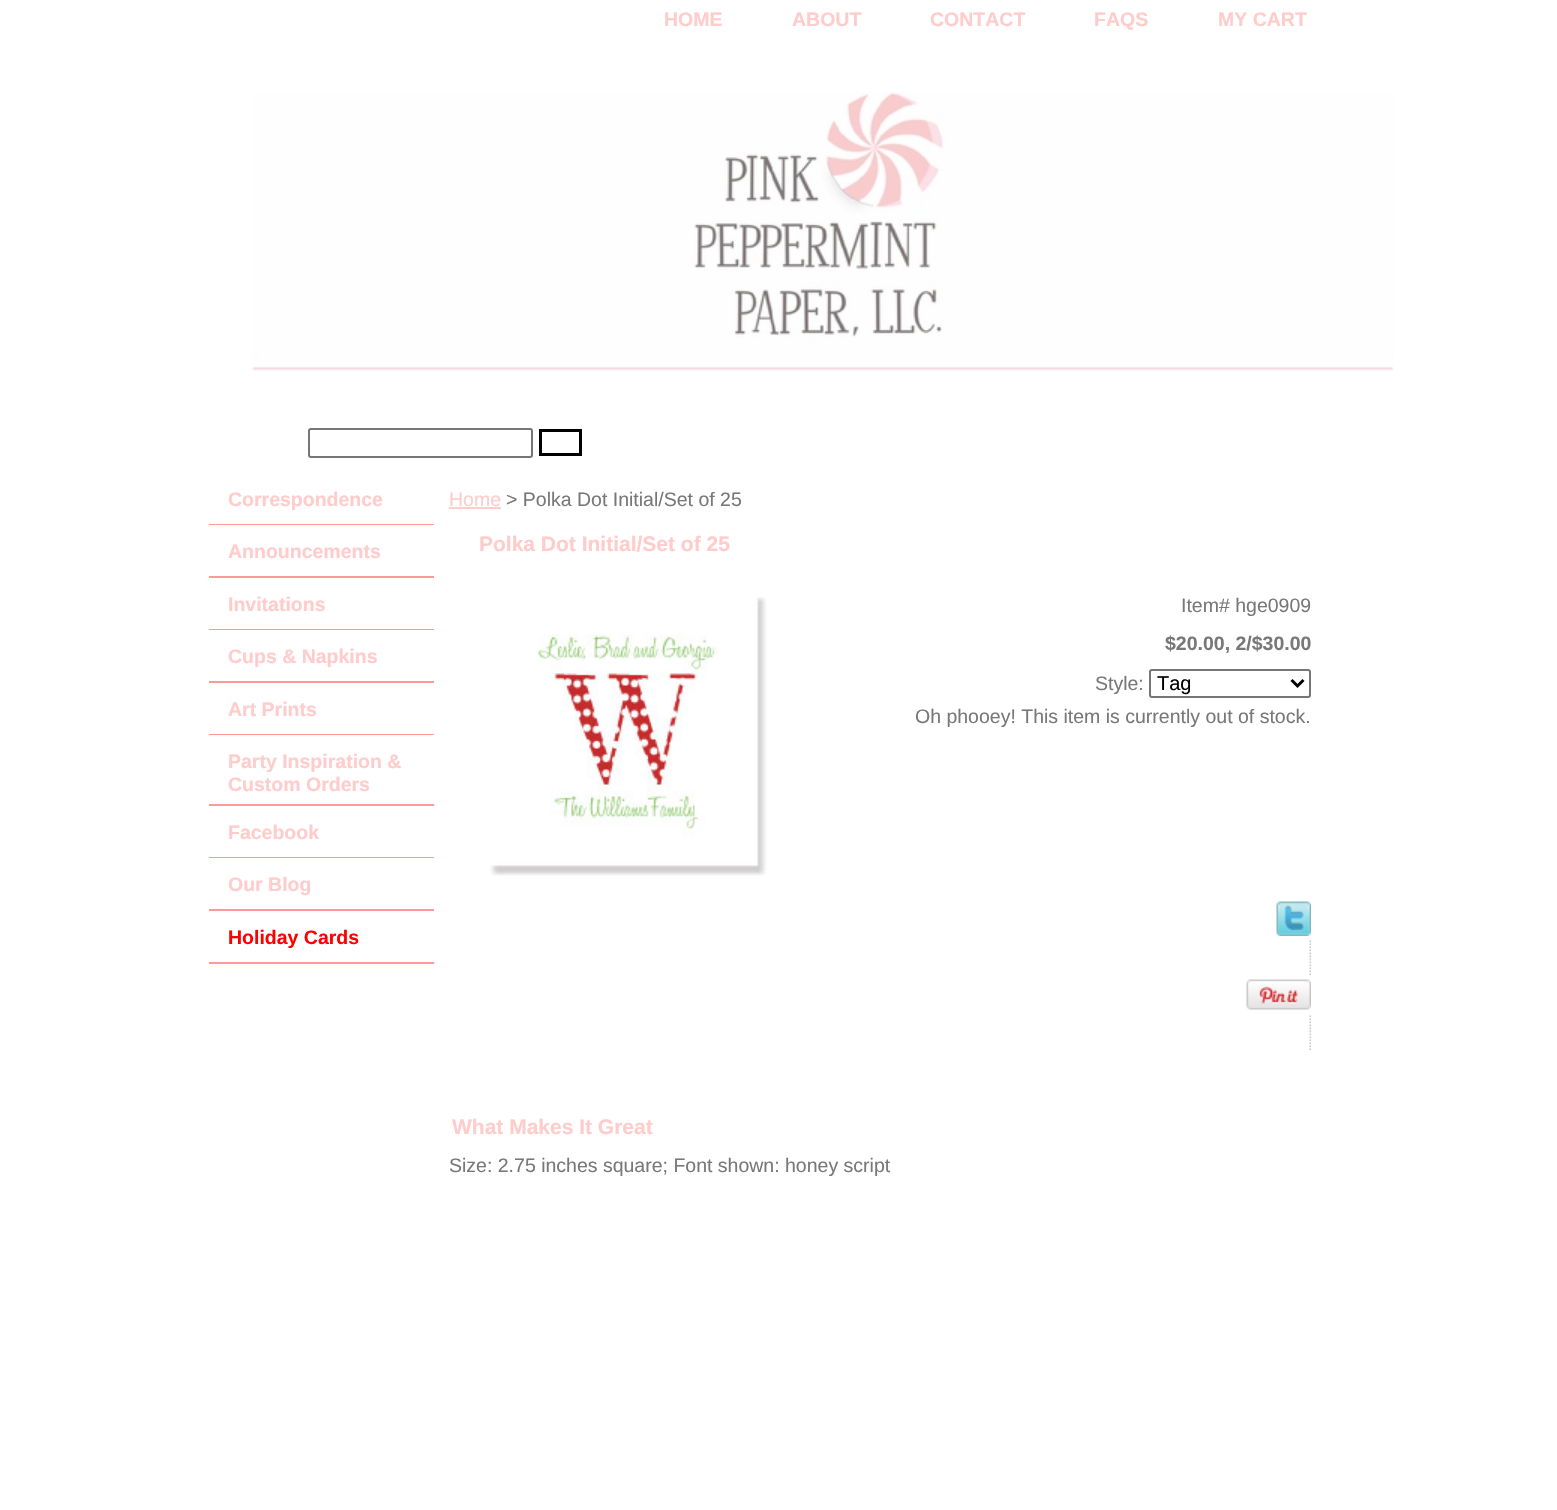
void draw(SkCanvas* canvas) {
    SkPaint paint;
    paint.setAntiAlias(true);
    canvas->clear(0xFFFFFFFF);
    SkFont font1(fontMgr->matchFamilyStyle("Liberation Sans", SkFontStyle::Bold()), 19.5f);
    font1.setSubpixel(true);
    paint.setColor(0xFFFFCCCC);
    canvas->drawString("HOME", 664, 26, font1, paint);
    canvas->drawString("ABOUT", 792, 26, font1, paint);
    canvas->drawString("CONTACT", 930, 26, font1, paint);
    canvas->drawString("FAQS", 1094, 26, font1, paint);
    canvas->drawString("MY CART", 1218, 26, font1, paint);
    canvas->drawImageRect(SkImages::DeferredFromEncodedData(SkData::MakeFromFileName("img1.png")), SkRect::MakeXYWH(252, 92, 1142, 279), SkSamplingOptions());
    paint.setStyle(SkPaint::kStroke_Style);
    paint.setStrokeWidth(2);
    paint.setColor(0xFF767676);
    canvas->drawRoundRect(SkRect::MakeXYWH(309, 429, 223, 28), 2, 2, paint);
    paint.setStrokeWidth(3);
    paint.setColor(0xFF000000);
    canvas->drawRect(SkRect::MakeXYWH(540.5f, 430.5f, 40, 24), paint);
    paint.setStyle(SkPaint::kFill_Style);
    paint.setColor(0xFFFF9999);
    canvas->drawRect(SkRect::MakeXYWH(209, 524, 225, 1), paint);
    paint.setColor(0xFFFFCCCC);
    canvas->drawString("Correspondence", 228, 506, font1, paint);
    paint.setColor(0xFFFF9999);
    canvas->drawRect(SkRect::MakeXYWH(209, 576, 225, 2), paint);
    paint.setColor(0xFFFFCCCC);
    canvas->drawString("Announcements", 228, 558, font1, paint);
    paint.setColor(0xFFFF9999);
    canvas->drawRect(SkRect::MakeXYWH(209, 629, 225, 1), paint);
    paint.setColor(0xFFFFCCCC);
    canvas->drawString("Invitations", 228, 611, font1, paint);
    paint.setColor(0xFFFF9999);
    canvas->drawRect(SkRect::MakeXYWH(209, 681, 225, 2), paint);
    paint.setColor(0xFFFFCCCC);
    canvas->drawString("Cups & Napkins", 228, 663, font1, paint);
    paint.setColor(0xFFFF9999);
    canvas->drawRect(SkRect::MakeXYWH(209, 734, 225, 1), paint);
    paint.setColor(0xFFFFCCCC);
    canvas->drawString("Art Prints", 228, 716, font1, paint);
    paint.setColor(0xFFFF9999);
    canvas->drawRect(SkRect::MakeXYWH(209, 804, 225, 2), paint);
    paint.setColor(0xFFFFCCCC);
    canvas->drawString("Party Inspiration &", 228, 768, font1, paint);
    canvas->drawString("Custom Orders", 228, 791, font1, paint);
    paint.setColor(0xFFFF9999);
    canvas->drawRect(SkRect::MakeXYWH(209, 857, 225, 1), paint);
    paint.setColor(0xFFFFCCCC);
    canvas->drawString("Facebook", 228, 839, font1, paint);
    paint.setColor(0xFFFF9999);
    canvas->drawRect(SkRect::MakeXYWH(209, 909, 225, 2), paint);
    paint.setColor(0xFFFFCCCC);
    canvas->drawString("Our Blog", 228, 891, font1, paint);
    paint.setColor(0xFFFF9999);
    canvas->drawRect(SkRect::MakeXYWH(209, 962, 225, 2), paint);
    paint.setColor(0xFFFF0000);
    canvas->drawString("Holiday Cards", 228, 944, font1, paint);
    SkFont font2(fontMgr->matchFamilyStyle("Liberation Sans", SkFontStyle::Normal()), 19.5f);
    font2.setSubpixel(true);
    paint.setColor(0xFFFFCCCC);
    canvas->drawString("Home", 449, 506, font2, paint);
    canvas->drawRect(SkRect::MakeXYWH(449, 507, 52, 2), paint);
    paint.setColor(0xFF787878);
    canvas->drawString("> Polka Dot Initial/Set of 25", 506, 506, font2, paint);
    SkFont font3(fontMgr->matchFamilyStyle("Liberation Sans", SkFontStyle::Bold()), 21);
    font3.setSubpixel(true);
    paint.setColor(0xFFFFCCCC);
    canvas->drawString("Polka Dot Initial/Set of 25", 479, 551, font3, paint);
    canvas->drawImageRect(SkImages::DeferredFromEncodedData(SkData::MakeFromFileName("img2.png")), SkRect::MakeXYWH(490, 597, 277, 279), SkSamplingOptions());
    paint.setColor(0xFF787878);
    canvas->drawString("Item# hge0909", 1181, 612, font2, paint);
    canvas->drawString("$20.00, 2/$30.00", 1165, 650, font1, paint);
    canvas->drawString("Style:", 1095, 690, font2, paint);
    paint.setStyle(SkPaint::kStroke_Style);
    paint.setStrokeWidth(2);
    paint.setColor(0xFF767676);
    canvas->drawRoundRect(SkRect::MakeXYWH(1150, 670, 160, 27), 2, 2, paint);
    paint.setStrokeWidth(3);
    paint.setColor(0xFF000000);
    canvas->drawPath(SkPathBuilder().moveTo(1291.5f, 680).lineTo(1297.5f, 686).lineTo(1303.5f, 680).detach(), paint);
    SkFont font4(fontMgr->matchFamilyStyle("Liberation Sans", SkFontStyle::Normal()), 20);
    font4.setSubpixel(true);
    paint.setStyle(SkPaint::kFill_Style);
    canvas->drawString("Tag", 1157, 690, font4, paint);
    paint.setColor(0xFF787878);
    canvas->drawString("Oh phooey! This item is currently out of stock.", 915, 723, font2, paint);
    canvas->drawImageRect(SkImages::DeferredFromEncodedData(SkData::MakeFromFileName("img3.png")), SkRect::MakeXYWH(1276, 901, 35, 35), SkSamplingOptions());
    canvas->drawImageRect(SkImages::DeferredFromEncodedData(SkData::MakeFromFileName("img4.png")), SkRect::MakeXYWH(1309, 940, 2, 35), SkSamplingOptions());
    canvas->drawImageRect(SkImages::DeferredFromEncodedData(SkData::MakeFromFileName("img5.png")), SkRect::MakeXYWH(1246, 979, 65, 31), SkSamplingOptions());
    canvas->drawImageRect(SkImages::DeferredFromEncodedData(SkData::MakeFromFileName("img4.png")), SkRect::MakeXYWH(1309, 1015, 2, 35), SkSamplingOptions());
    paint.setColor(0xFFFFCCCC);
    canvas->drawString("What Makes It Great", 452, 1134, font3, paint);
    paint.setColor(0xFF787878);
    canvas->drawString("Size: 2.75 inches square; Font shown: honey script", 449, 1172, font2, paint);
}
